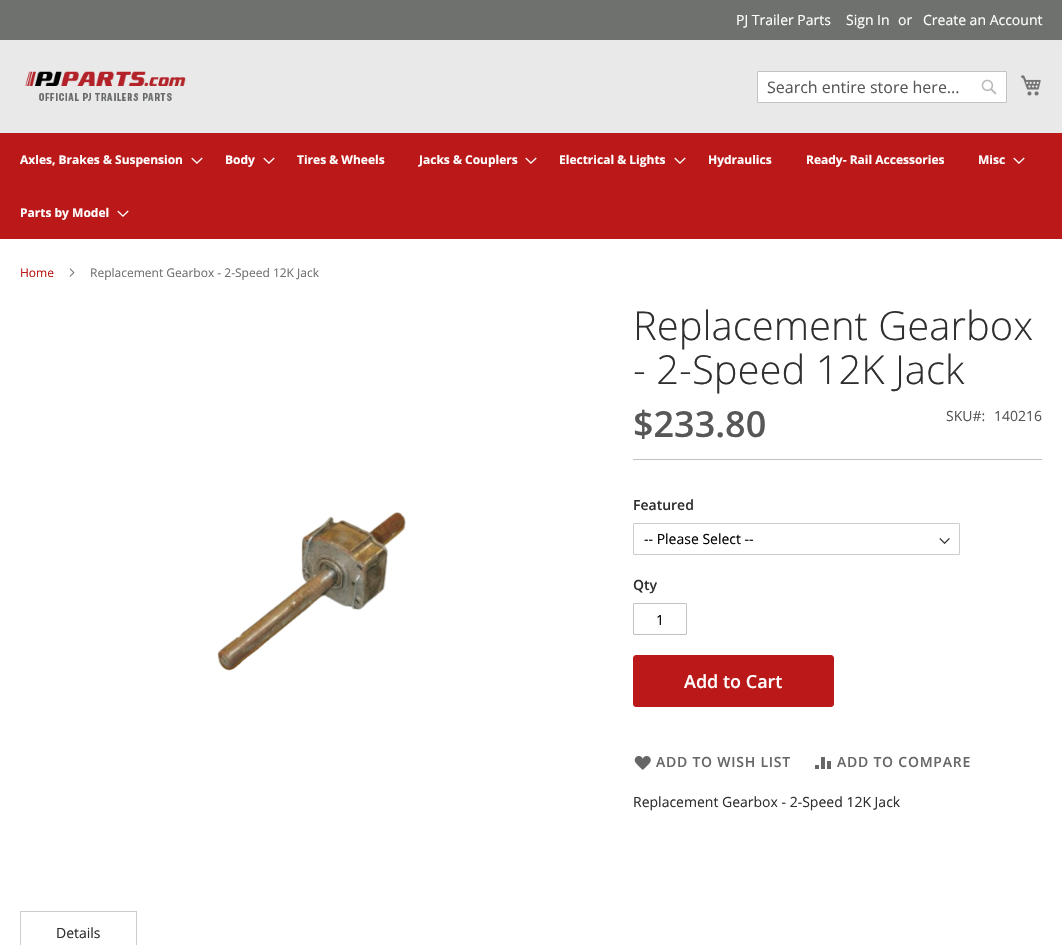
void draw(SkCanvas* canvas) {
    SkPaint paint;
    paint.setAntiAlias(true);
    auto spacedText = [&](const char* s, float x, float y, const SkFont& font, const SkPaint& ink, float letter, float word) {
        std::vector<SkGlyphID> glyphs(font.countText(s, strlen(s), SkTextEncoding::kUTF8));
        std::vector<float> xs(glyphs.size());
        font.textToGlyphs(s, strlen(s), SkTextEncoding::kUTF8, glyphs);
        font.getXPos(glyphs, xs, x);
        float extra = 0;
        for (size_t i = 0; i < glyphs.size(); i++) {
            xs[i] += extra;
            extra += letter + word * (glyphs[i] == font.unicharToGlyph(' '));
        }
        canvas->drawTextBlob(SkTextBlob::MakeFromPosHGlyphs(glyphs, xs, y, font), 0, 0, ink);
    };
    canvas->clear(0xFFFFFFFF);
    paint.setColor(0xFFE9E9E9);
    canvas->drawRect(SkRect::MakeXYWH(0, 41, 1062, 92), paint);
    paint.setColor(0xFF6E716E);
    canvas->drawRect(SkRect::MakeXYWH(0, 0, 1062, 40), paint);
    paint.setColor(0xFFE8E8E8);
    canvas->drawRect(SkRect::MakeXYWH(0, 40, 1062, 1), paint);
    SkFont font1(fontMgr->matchFamilyStyle("Open Sans", SkFontStyle::Normal()), 14);
    font1.setSubpixel(true);
    paint.setColor(0xFFFFFFFF);
    canvas->drawString("PJ Trailer Parts", 736, 25, font1, paint);
    canvas->drawString("Sign In", 846, 25, font1, paint);
    canvas->drawString("or", 898, 25, font1, paint);
    canvas->drawString("Create an Account", 923, 25, font1, paint);
    canvas->drawImageRect(SkImages::DeferredFromEncodedData(SkData::MakeFromFileName("img1.png")), SkRect::MakeXYWH(25, 71, 161, 30), SkSamplingOptions());
    canvas->drawRoundRect(SkRect::MakeXYWH(757.5f, 71.5f, 249, 31), 0.5f, 0.5f, paint);
    paint.setStyle(SkPaint::kStroke_Style);
    paint.setStrokeWidth(1);
    paint.setColor(0xFFC2C2C2);
    canvas->drawRoundRect(SkRect::MakeXYWH(757.5f, 71.5f, 249, 31), 0.5f, 0.5f, paint);
    SkFont font2(fontMgr->matchFamilyStyle("Open Sans", SkFontStyle::Normal()), 16);
    font2.setSubpixel(true);
    paint.setStyle(SkPaint::kFill_Style);
    paint.setColor(0xFF575757);
    canvas->drawString("Search entire store here...", 767, 93, font2, paint);
    canvas->drawImageRect(SkImages::DeferredFromEncodedData(SkData::MakeFromFileName("img2.png")), SkRect::MakeXYWH(981, 79, 16, 16), SkSamplingOptions());
    canvas->drawImageRect(SkImages::DeferredFromEncodedData(SkData::MakeFromFileName("img3.png")), SkRect::MakeXYWH(1021, 75, 20, 21), SkSamplingOptions());
    paint.setColor(0xFFBB1919);
    canvas->drawRect(SkRect::MakeXYWH(0, 133, 1062, 106), paint);
    SkFont font3(fontMgr->matchFamilyStyle("Open Sans", SkFontStyle::Bold()), 12);
    font3.setSubpixel(true);
    paint.setColor(0xFFFFFFFF);
    canvas->drawString("Axles, Brakes & Suspension", 20, 164, font3, paint);
    canvas->drawImageRect(SkImages::DeferredFromEncodedData(SkData::MakeFromFileName("img4.png")), SkRect::MakeXYWH(191, 157, 12, 7), SkSamplingOptions());
    canvas->drawString("Body", 225, 164, font3, paint);
    canvas->drawImageRect(SkImages::DeferredFromEncodedData(SkData::MakeFromFileName("img4.png")), SkRect::MakeXYWH(263, 157, 12, 7), SkSamplingOptions());
    canvas->drawString("Tires & Wheels", 297, 164, font3, paint);
    canvas->drawString("Jacks & Couplers", 419, 164, font3, paint);
    canvas->drawImageRect(SkImages::DeferredFromEncodedData(SkData::MakeFromFileName("img4.png")), SkRect::MakeXYWH(525, 157, 12, 7), SkSamplingOptions());
    canvas->drawString("Electrical & Lights", 559, 164, font3, paint);
    canvas->drawImageRect(SkImages::DeferredFromEncodedData(SkData::MakeFromFileName("img4.png")), SkRect::MakeXYWH(674, 157, 12, 7), SkSamplingOptions());
    canvas->drawString("Hydraulics", 708, 164, font3, paint);
    canvas->drawString("Ready- Rail Accessories", 806, 164, font3, paint);
    canvas->drawString("Misc", 978, 164, font3, paint);
    canvas->drawImageRect(SkImages::DeferredFromEncodedData(SkData::MakeFromFileName("img4.png")), SkRect::MakeXYWH(1013, 157, 12, 7), SkSamplingOptions());
    canvas->drawString("Parts by Model", 20, 217, font3, paint);
    canvas->drawImageRect(SkImages::DeferredFromEncodedData(SkData::MakeFromFileName("img4.png")), SkRect::MakeXYWH(117, 210, 12, 7), SkSamplingOptions());
    SkFont font4(fontMgr->matchFamilyStyle("Open Sans", SkFontStyle::Normal()), 12);
    font4.setSubpixel(true);
    paint.setColor(0xFFBB1919);
    canvas->drawString("Home", 20, 277, font4, paint);
    canvas->drawImageRect(SkImages::DeferredFromEncodedData(SkData::MakeFromFileName("img5.png")), SkRect::MakeXYWH(69, 268, 6, 9), SkSamplingOptions());
    paint.setColor(0xFF707070);
    canvas->drawString("Replacement Gearbox - 2-Speed 12K Jack", 90, 277, font4, paint);
    canvas->drawImageRect(SkImages::DeferredFromEncodedData(SkData::MakeFromFileName("img6.png")), SkRect::MakeXYWH(217, 511, 189, 160), SkSamplingOptions());
    SkFont font5(fontMgr->matchFamilyStyle("Open Sans", SkFontStyle(300, SkFontStyle::kNormal_Width, SkFontStyle::kUpright_Slant)), 40);
    font5.setSubpixel(true);
    paint.setColor(0xFF2F2F2F);
    canvas->drawString("Replacement Gearbox", 633, 340, font5, paint);
    canvas->drawString("- 2-Speed 12K Jack", 633, 384, font5, paint);
    paint.setColor(0xFFC1C1C1);
    canvas->drawRect(SkRect::MakeXYWH(633, 459, 409, 1), paint);
    SkFont font6(fontMgr->matchFamilyStyle("Open Sans", SkFontStyle(600, SkFontStyle::kNormal_Width, SkFontStyle::kUpright_Slant)), 36);
    font6.setSubpixel(true);
    paint.setColor(0xFF575757);
    canvas->drawString("$233.80", 633, 437, font6, paint);
    canvas->drawString("SKU#:", 946, 421, font1, paint);
    canvas->drawString("140216", 994, 421, font1, paint);
    SkFont font7(fontMgr->matchFamilyStyle("Open Sans", SkFontStyle(600, SkFontStyle::kNormal_Width, SkFontStyle::kUpright_Slant)), 14);
    font7.setSubpixel(true);
    paint.setColor(0xFF2F2F2F);
    canvas->drawString("Featured", 633, 510, font7, paint);
    canvas->drawImageRect(SkImages::DeferredFromEncodedData(SkData::MakeFromFileName("img7.png")), SkRect::MakeXYWH(939, 538, 11, 6), SkSamplingOptions());
    paint.setStyle(SkPaint::kStroke_Style);
    paint.setColor(0xFFCCCCCC);
    canvas->drawRoundRect(SkRect::MakeXYWH(633.5f, 523.5f, 326, 31), 0.5f, 0.5f, paint);
    paint.setStyle(SkPaint::kFill_Style);
    paint.setColor(0xFF000000);
    canvas->drawString("-- Please Select --", 644, 544, font1, paint);
    paint.setColor(0xFF2F2F2F);
    canvas->drawString("Qty", 633, 590, font7, paint);
    paint.setStyle(SkPaint::kStroke_Style);
    paint.setColor(0xFFC2C2C2);
    canvas->drawRoundRect(SkRect::MakeXYWH(633.5f, 603.5f, 53, 31), 0.5f, 0.5f, paint);
    paint.setStyle(SkPaint::kFill_Style);
    paint.setColor(0xFF000000);
    canvas->drawString("1", 656, 625, font1, paint);
    paint.setColor(0xFFBB1919);
    canvas->drawRoundRect(SkRect::MakeXYWH(633.5f, 655.5f, 200, 51), 2.5f, 2.5f, paint);
    paint.setStyle(SkPaint::kStroke_Style);
    canvas->drawRoundRect(SkRect::MakeXYWH(633.5f, 655.5f, 200, 51), 2.5f, 2.5f, paint);
    SkFont font8(fontMgr->matchFamilyStyle("Open Sans", SkFontStyle(600, SkFontStyle::kNormal_Width, SkFontStyle::kUpright_Slant)), 18);
    font8.setSubpixel(true);
    paint.setStyle(SkPaint::kFill_Style);
    paint.setColor(0xFFFFFFFF);
    canvas->drawString("Add to Cart", 684, 688, font8, paint);
    canvas->drawImageRect(SkImages::DeferredFromEncodedData(SkData::MakeFromFileName("img8.png")), SkRect::MakeXYWH(634, 756, 17, 14), SkSamplingOptions());
    paint.setColor(0xFF666666);
    spacedText("ADD TO WISH LIST", 656, 767, font7, paint, 0.75f, 0);
    canvas->drawImageRect(SkImages::DeferredFromEncodedData(SkData::MakeFromFileName("img9.png")), SkRect::MakeXYWH(815, 757, 16, 12), SkSamplingOptions());
    spacedText("ADD TO COMPARE", 837, 767, font7, paint, 0.75f, 0);
    paint.setColor(0xFF2F2F2F);
    canvas->drawString("Replacement Gearbox - 2-Speed 12K Jack", 633, 807, font1, paint);
    paint.setColor(0xFFCCCCCC);
    canvas->drawRect(SkRect::MakeXYWH(20, 911, 117, 1), paint);
    canvas->drawRect(SkRect::MakeXYWH(136, 911, 1, 34), paint);
    canvas->drawRect(SkRect::MakeXYWH(20, 911, 1, 34), paint);
    paint.setColor(0xFF2F2F2F);
    canvas->drawString("Details", 56, 938, font1, paint);
}
